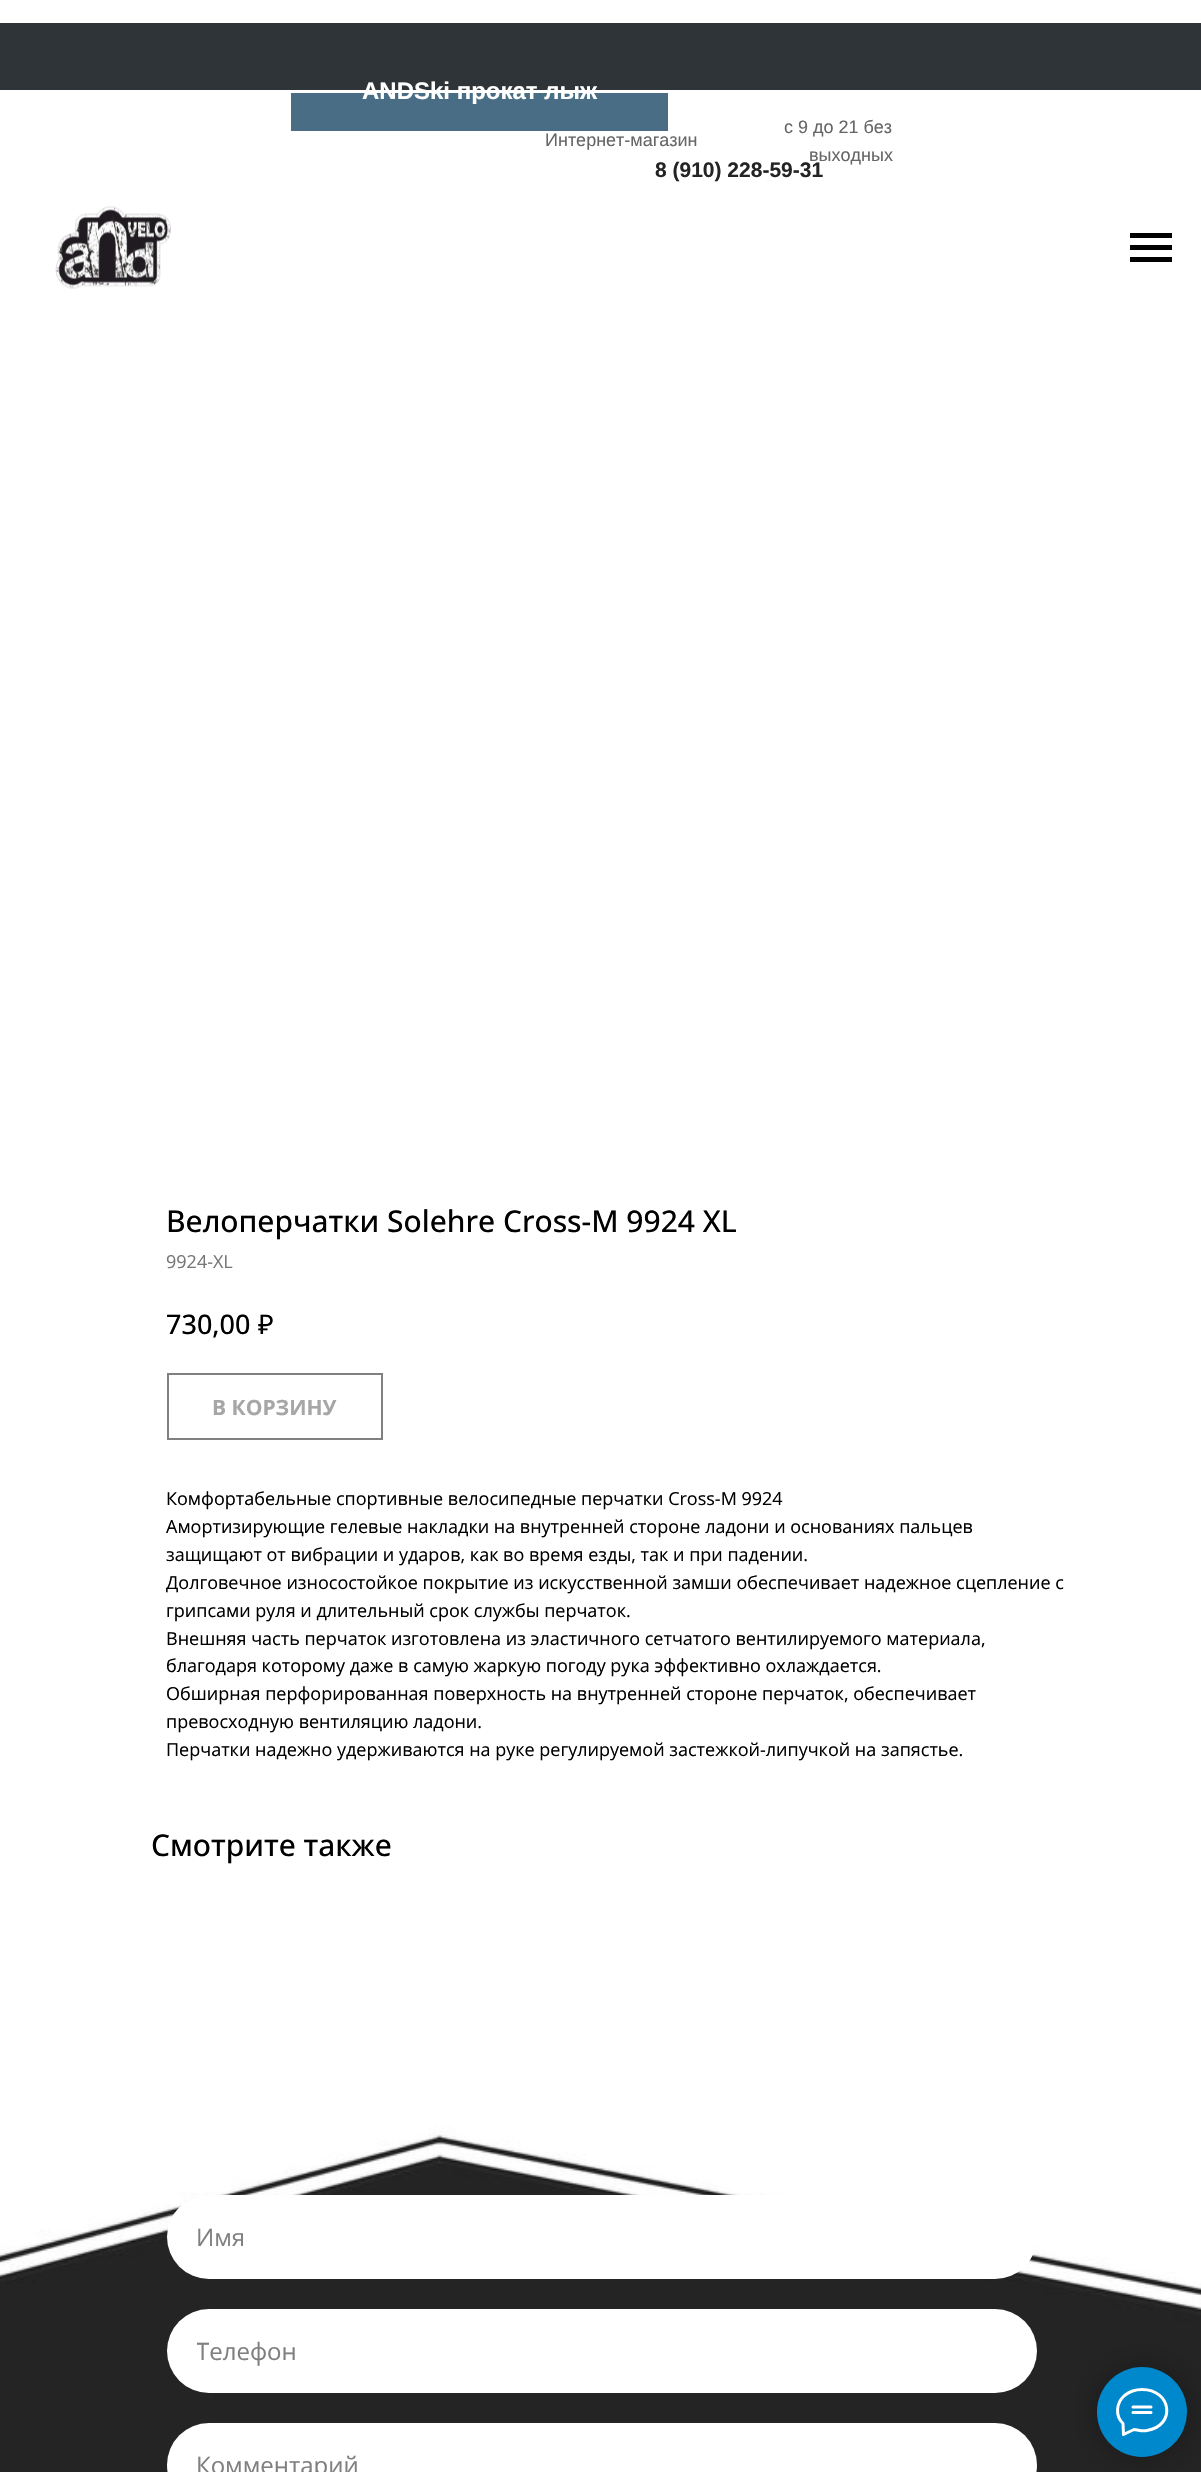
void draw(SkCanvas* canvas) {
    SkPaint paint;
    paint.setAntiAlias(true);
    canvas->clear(0xFFFFFFFF);
    paint.setColor(0xFF2E3437);
    canvas->drawRect(SkRect::MakeXYWH(0, 23, 1201, 67), paint);
    paint.setColor(0xFF496D85);
    canvas->drawRect(SkRect::MakeXYWH(291, 93, 377, 38), paint);
    SkFont font1(fontMgr->matchFamilyStyle("Liberation Sans", SkFontStyle::Bold()), 24);
    font1.setSubpixel(true);
    paint.setColor(0xFFFFFFFF);
    canvas->drawString("ANDSki прокат лыж", 362, 99, font1, paint);
    SkFont font2(fontMgr->matchFamilyStyle("Liberation Sans", SkFontStyle::Normal()), 18);
    font2.setSubpixel(true);
    paint.setColor(0xFF666666);
    canvas->drawString("Интернет-магазин", 545, 146, font2, paint);
    canvas->drawString("с 9 до 21 без", 784, 133, font2, paint);
    canvas->drawString("выходных", 809, 161, font2, paint);
    SkFont font3(fontMgr->matchFamilyStyle("Liberation Sans", SkFontStyle::Bold()), 21);
    font3.setSubpixel(true);
    paint.setColor(0xFF242424);
    canvas->drawString("8 (910) 228-59-31", 655, 177, font3, paint);
    canvas->drawImageRect(SkImages::DeferredFromEncodedData(SkData::MakeFromFileName("img1.png")), SkRect::MakeXYWH(55, 206, 116, 83), SkSamplingOptions());
    paint.setColor(0xFF000000);
    canvas->drawRect(SkRect::MakeXYWH(1130, 233, 42, 5), paint);
    canvas->drawRect(SkRect::MakeXYWH(1130, 245, 42, 5), paint);
    canvas->drawRect(SkRect::MakeXYWH(1130, 257, 42, 5), paint);
    SkFont font4(fontMgr->matchFamilyStyle("Open Sans", SkFontStyle(500, SkFontStyle::kNormal_Width, SkFontStyle::kUpright_Slant)), 30);
    font4.setSubpixel(true);
    canvas->drawString("Велоперчатки Solehre Cross-M 9924 XL", 166, 1232, font4, paint);
    SkFont font5(fontMgr->matchFamilyStyle("Open Sans", SkFontStyle::Normal()), 18);
    font5.setSubpixel(true);
    paint.setColor(0xFF777777);
    canvas->drawString("9924-XL", 166, 1268, font5, paint);
    SkFont font6(fontMgr->matchFamilyStyle("Open Sans", SkFontStyle(500, SkFontStyle::kNormal_Width, SkFontStyle::kUpright_Slant)), 27);
    font6.setSubpixel(true);
    paint.setColor(0xFF000000);
    canvas->drawString("730,00", 166, 1334, font6, paint);
    SkFont font7(fontMgr->matchFamilyStyle("Noto Sans", SkFontStyle::Normal()), 27);
    font7.setSubpixel(true);
    canvas->drawString("₽", 258, 1334, font7, paint);
    paint.setStyle(SkPaint::kStroke_Style);
    paint.setStrokeWidth(2);
    paint.setColor(0xFF808080);
    canvas->drawRect(SkRect::MakeXYWH(168, 1374, 214, 65), paint);
    SkFont font8(fontMgr->matchFamilyStyle("Open Sans", SkFontStyle::Bold()), 21);
    font8.setSubpixel(true);
    paint.setStyle(SkPaint::kFill_Style);
    paint.setColor(0xFFA6A6A6);
    canvas->drawString("В КОРЗИНУ", 212, 1415, font8, paint);
    paint.setColor(0xFF000000);
    canvas->drawString("Комфортабельные спортивные велосипедные перчатки Cross-M 9924", 166, 1505, font5, paint);
    canvas->drawString("Амортизирующие гелевые накладки на внутренней стороне ладони и основаниях пальцев", 166, 1533, font5, paint);
    canvas->drawString("защищают от вибрации и ударов, как во время езды, так и при падении.", 166, 1561, font5, paint);
    canvas->drawString("Долговечное износостойкое покрытие из искусственной замши обеспечивает надежное сцепление с", 166, 1589, font5, paint);
    canvas->drawString("грипсами руля и длительный срок службы перчаток.", 166, 1617, font5, paint);
    canvas->drawString("Внешняя часть перчаток изготовлена из эластичного сетчатого вентилируемого материала,", 166, 1645, font5, paint);
    canvas->drawString("благодаря которому даже в самую жаркую погоду рука эффективно охлаждается.", 166, 1672, font5, paint);
    canvas->drawString("Обширная перфорированная поверхность на внутренней стороне перчаток, обеспечивает", 166, 1700, font5, paint);
    canvas->drawString("превосходную вентиляцию ладони.", 166, 1728, font5, paint);
    canvas->drawString("Перчатки надежно удерживаются на руке регулируемой застежкой-липучкой на запястье.", 166, 1756, font5, paint);
    canvas->drawString("Смотрите также", 151, 1856, font4, paint);
    canvas->drawImageRect(SkImages::DeferredFromEncodedData(SkData::MakeFromFileName("img2.png")), SkRect::MakeXYWH(0, 2084, 1201, 388), SkSamplingOptions());
    paint.setColor(0xFFFFFFFF);
    canvas->drawRoundRect(SkRect::MakeXYWH(167, 2195, 870, 84), 42, 42, paint);
    SkFont font9(fontMgr->matchFamilyStyle("Open Sans", SkFontStyle::Normal()), 24);
    font9.setSubpixel(true);
    paint.setColor(0xFF808080);
    canvas->drawString("Имя", 196, 2246, font9, paint);
    paint.setColor(0xFFFFFFFF);
    canvas->drawRoundRect(SkRect::MakeXYWH(167, 2309, 870, 84), 42, 42, paint);
    canvas->save();
    canvas->clipRect(SkRect::MakeXYWH(197, 2334, 810, 33));
    paint.setColor(0xFF808080);
    canvas->drawString("Телефон", 196, 2360, font9, paint);
    canvas->restore();
    paint.setColor(0xFFFFFFFF);
    canvas->drawRoundRect(SkRect::MakeXYWH(167, 2423, 870, 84), 42, 42, paint);
    paint.setColor(0xFF808080);
    canvas->drawString("Комментарий", 196, 2474, font9, paint);
    paint.setColor(0x4D000000);
    paint.setMaskFilter(SkMaskFilter::MakeBlur(kNormal_SkBlurStyle, 15));
    canvas->drawRoundRect(SkRect::MakeXYWH(1097, 2367, 90, 90), 45, 45, paint);
    paint.setMaskFilter(nullptr);
    paint.setColor(0xFF0088CC);
    canvas->drawCircle(1142, 2412, 45, paint);
    paint.setStyle(SkPaint::kStroke_Style);
    paint.setStrokeWidth(3);
    paint.setStrokeCap(SkPaint::kRound_Cap);
    paint.setStrokeJoin(SkPaint::kRound_Join);
    paint.setColor(0xFFFFFFFF);
    canvas->drawPath(SkPathBuilder().moveTo(1133, 2407).lineTo(1151, 2407).moveTo(1133, 2412.5f).lineTo(1151, 2412.5f).moveTo(1123, 2423.5f).cubicTo(1115, 2415.5f, 1116, 2403, 1124.5f, 2395.5f).cubicTo(1129.5f, 2391.5f, 1136, 2389.5f, 1142, 2389.5f).cubicTo(1171.5f, 2389.5f, 1176.5f, 2425.5f, 1147, 2430.5f).cubicTo(1142, 2431.5f, 1139, 2430, 1134, 2429.5f).lineTo(1123.5f, 2434.5f).close().detach(), paint);
}
